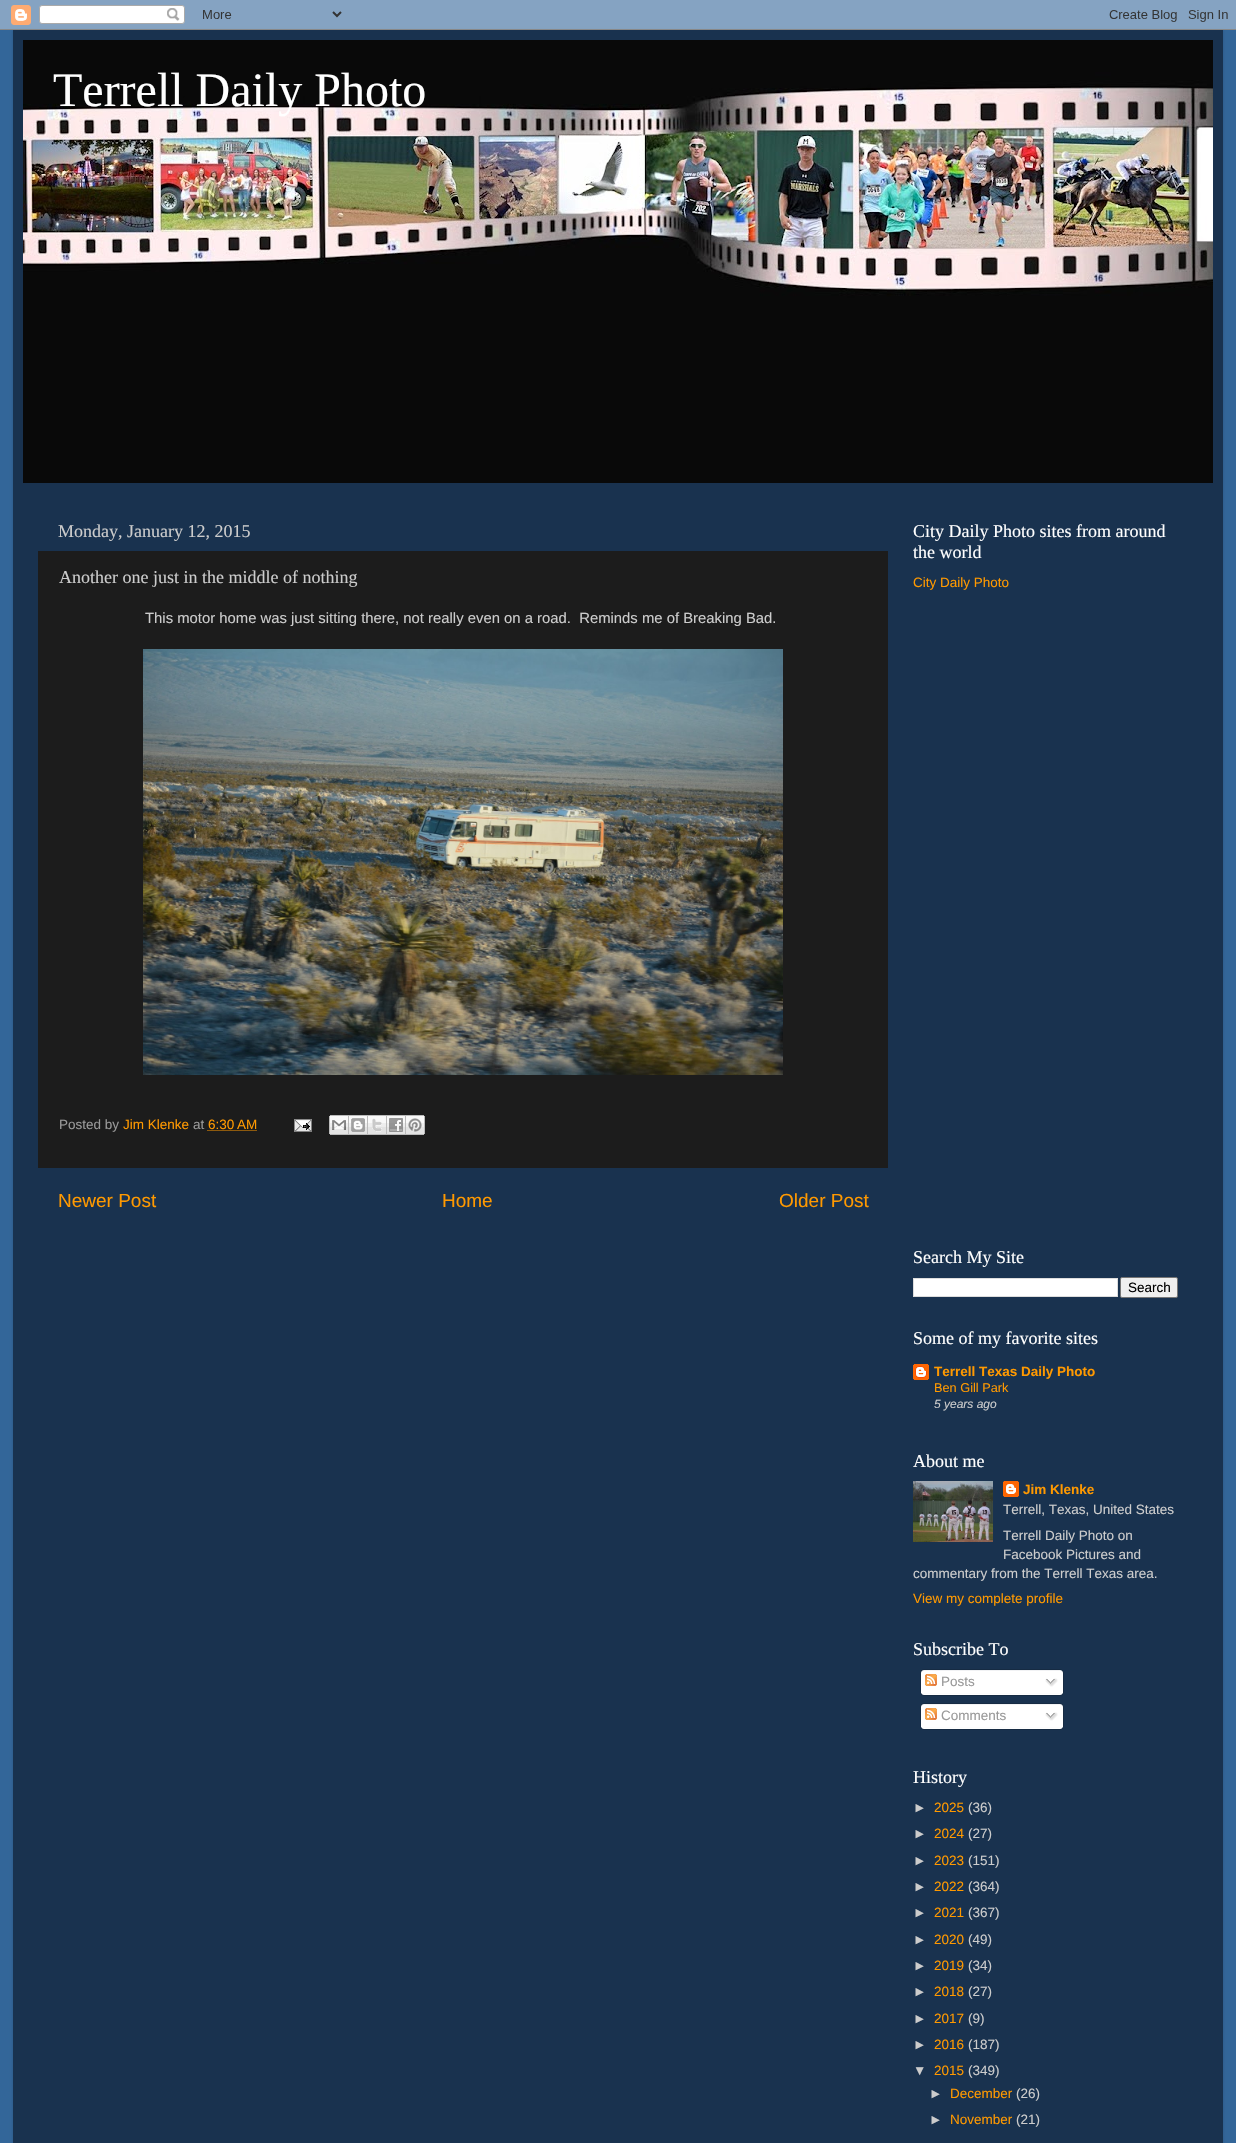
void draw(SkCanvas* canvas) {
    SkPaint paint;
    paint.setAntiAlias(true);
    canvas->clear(0xFF336699);
    paint.setColor(0x26000000);
    paint.setMaskFilter(SkMaskFilter::MakeBlur(kNormal_SkBlurStyle, 1.5f));
    canvas->drawRect(SkRect::MakeXYWH(13, 30, 1210, 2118), paint);
    paint.setMaskFilter(nullptr);
    canvas->drawImageRect(SkImages::DeferredFromEncodedData(SkData::MakeFromFileName("img1.png")), SkRect::MakeXYWH(0, 0, 1236, 30), SkSamplingOptions());
    paint.setColor(0xFF19324F);
    canvas->drawRect(SkRect::MakeXYWH(13, 30, 1210, 2113), paint);
    canvas->drawImageRect(SkImages::DeferredFromEncodedData(SkData::MakeFromFileName("img2.png")), SkRect::MakeXYWH(23, 40, 1190, 443), SkSamplingOptions());
    SkFont font1(fontMgr->matchFamilyStyle("Liberation Serif", SkFontStyle::Normal()), 48);
    font1.setSubpixel(true);
    paint.setColor(0xFFFFFFFF);
    canvas->drawString("Terrell Daily Photo", 53, 106, font1, paint);
    SkFont font2(fontMgr->matchFamilyStyle("Liberation Serif", SkFontStyle::Normal()), 18);
    font2.setSubpixel(true);
    paint.setColor(0xFFCCCCCC);
    canvas->drawString("Monday, January 12, 2015", 58, 537, font2, paint);
    paint.setColor(0xFF1C1C1C);
    canvas->drawRect(SkRect::MakeXYWH(38, 551, 850, 617), paint);
    paint.setColor(0xFFCCCCCC);
    canvas->drawString("Another one just in the middle of nothing", 59, 583, font2, paint);
    SkFont font3(fontMgr->matchFamilyStyle("Liberation Sans", SkFontStyle::Normal()), 14.85f);
    font3.setSubpixel(true);
    canvas->drawString("This motor home was just sitting there, not really even on a road.  Reminds me of Breaking Bad.", 145, 623, font3, paint);
    canvas->drawImageRect(SkImages::DeferredFromEncodedData(SkData::MakeFromFileName("img3.png")), SkRect::MakeXYWH(143, 649, 640, 426), SkSamplingOptions());
    SkFont font4(fontMgr->matchFamilyStyle("Liberation Sans", SkFontStyle::Normal()), 13.5f);
    font4.setSubpixel(true);
    paint.setColor(0xFF999999);
    canvas->drawString("Posted by", 59, 1129, font4, paint);
    paint.setColor(0xFFFF9900);
    canvas->drawString("Jim Klenke", 123, 1129, font4, paint);
    paint.setColor(0xFF999999);
    canvas->drawString("at", 193, 1129, font4, paint);
    paint.setColor(0xFFFF9900);
    canvas->drawString("6:30 AM", 208, 1129, font4, paint);
    paint.setStyle(SkPaint::kStroke_Style);
    paint.setStrokeWidth(1);
    paint.setPathEffect(SkDashPathEffect::Make({{1, 1}}, 0));
    canvas->drawPath(SkPathBuilder().moveTo(207.5f, 1130.5f).lineTo(257, 1130.5f).detach(), paint);
    paint.setPathEffect(nullptr);
    canvas->drawImageRect(SkImages::DeferredFromEncodedData(SkData::MakeFromFileName("img4.png")), SkRect::MakeXYWH(294, 1119, 18, 13), SkSamplingOptions());
    canvas->drawImageRect(SkImages::DeferredFromEncodedData(SkData::MakeFromFileName("img5.png")), SkRect::MakeXYWH(329, 1115, 20, 20), SkSamplingOptions());
    canvas->drawImageRect(SkImages::DeferredFromEncodedData(SkData::MakeFromFileName("img6.png")), SkRect::MakeXYWH(349, 1115, 19, 20), SkSamplingOptions());
    canvas->drawImageRect(SkImages::DeferredFromEncodedData(SkData::MakeFromFileName("img7.png")), SkRect::MakeXYWH(368, 1115, 19, 20), SkSamplingOptions());
    canvas->drawImageRect(SkImages::DeferredFromEncodedData(SkData::MakeFromFileName("img8.png")), SkRect::MakeXYWH(387, 1115, 19, 20), SkSamplingOptions());
    canvas->drawImageRect(SkImages::DeferredFromEncodedData(SkData::MakeFromFileName("img9.png")), SkRect::MakeXYWH(406, 1115, 19, 20), SkSamplingOptions());
    SkFont font5(fontMgr->matchFamilyStyle("Liberation Sans", SkFontStyle::Normal()), 19);
    font5.setSubpixel(true);
    paint.setStyle(SkPaint::kFill_Style);
    canvas->drawString("Newer Post", 58, 1207, font5, paint);
    canvas->drawString("Home", 442, 1207, font5, paint);
    canvas->drawString("Older Post", 779, 1207, font5, paint);
    paint.setColor(0xFFFFFFFF);
    canvas->drawString("City Daily Photo sites from around", 913, 537, font2, paint);
    canvas->drawString("the world", 913, 558, font2, paint);
    paint.setColor(0xFFFF9900);
    canvas->drawString("City Daily Photo", 913, 587, font4, paint);
    paint.setColor(0xFFFFFFFF);
    canvas->drawString("Search My Site", 913, 1263, font2, paint);
    canvas->drawRect(SkRect::MakeXYWH(913.5f, 1278.5f, 204, 18), paint);
    paint.setStyle(SkPaint::kStroke_Style);
    paint.setColor(0xFFDDDDDD);
    canvas->drawRect(SkRect::MakeXYWH(913.5f, 1278.5f, 204, 18), paint);
    paint.setStyle(SkPaint::kFill_Style);
    paint.setColor(0xFFEFEFEF);
    canvas->drawRoundRect(SkRect::MakeXYWH(1120.5f, 1277.5f, 57, 20), 1.5f, 1.5f, paint);
    paint.setStyle(SkPaint::kStroke_Style);
    paint.setColor(0xFF767676);
    canvas->drawRoundRect(SkRect::MakeXYWH(1120.5f, 1277.5f, 57, 20), 1.5f, 1.5f, paint);
    paint.setStyle(SkPaint::kFill_Style);
    paint.setColor(0xFF000000);
    canvas->drawString("Search", 1128, 1292, font4, paint);
    paint.setColor(0xFFFFFFFF);
    canvas->drawString("Some of my favorite sites", 913, 1344, font2, paint);
    canvas->drawImageRect(SkImages::DeferredFromEncodedData(SkData::MakeFromFileName("img10.png")), SkRect::MakeXYWH(913, 1364, 16, 16), SkSamplingOptions());
    SkFont font6(fontMgr->matchFamilyStyle("Liberation Sans", SkFontStyle::Bold()), 13.5f);
    font6.setSubpixel(true);
    paint.setColor(0xFFFF9900);
    canvas->drawString("Terrell Texas Daily Photo", 934, 1376, font6, paint);
    SkFont font7(fontMgr->matchFamilyStyle("Liberation Sans", SkFontStyle::Normal()), 12.75f);
    font7.setSubpixel(true);
    canvas->drawString("Ben Gill Park", 934, 1392, font7, paint);
    SkFont font8(fontMgr->matchFamilyStyle("Liberation Sans", SkFontStyle::Italic()), 12);
    font8.setSubpixel(true);
    paint.setColor(0xFFCCCCCC);
    canvas->drawString("5 years ago", 934, 1408, font8, paint);
    paint.setColor(0xFFFFFFFF);
    canvas->drawString("About me", 913, 1467, font2, paint);
    canvas->drawImageRect(SkImages::DeferredFromEncodedData(SkData::MakeFromFileName("img11.png")), SkRect::MakeXYWH(913, 1481, 80, 61), SkSamplingOptions());
    canvas->drawImageRect(SkImages::DeferredFromEncodedData(SkData::MakeFromFileName("img12.png")), SkRect::MakeXYWH(1003, 1481, 16, 16), SkSamplingOptions());
    paint.setColor(0xFFFF9900);
    canvas->drawString("Jim Klenke", 1023, 1494, font6, paint);
    paint.setColor(0xFFCCCCCC);
    canvas->drawString("Terrell, Texas, United States", 1003, 1514, font4, paint);
    canvas->drawString("Terrell Daily Photo on", 1003, 1540, font4, paint);
    canvas->drawString("Facebook Pictures and", 1003, 1559, font4, paint);
    canvas->drawString("commentary from the Terrell Texas area.", 913, 1578, font4, paint);
    paint.setColor(0xFFFF9900);
    canvas->drawString("View my complete profile", 913, 1603, font4, paint);
    paint.setColor(0xFFFFFFFF);
    canvas->drawString("Subscribe To", 913, 1655, font2, paint);
    canvas->drawImageRect(SkImages::DeferredFromEncodedData(SkData::MakeFromFileName("img13.png")), SkRect::MakeXYWH(920, 1669, 144, 24), SkSamplingOptions());
    canvas->drawImageRect(SkImages::DeferredFromEncodedData(SkData::MakeFromFileName("img14.png")), SkRect::MakeXYWH(925, 1674, 12, 12), SkSamplingOptions());
    paint.setColor(0xFF999999);
    canvas->drawString("Posts", 941, 1686, font4, paint);
    canvas->drawImageRect(SkImages::DeferredFromEncodedData(SkData::MakeFromFileName("img15.png")), SkRect::MakeXYWH(1045, 1678, 13, 9), SkSamplingOptions());
    canvas->drawImageRect(SkImages::DeferredFromEncodedData(SkData::MakeFromFileName("img16.png")), SkRect::MakeXYWH(920, 1693, 144, 3), SkSamplingOptions());
    canvas->drawImageRect(SkImages::DeferredFromEncodedData(SkData::MakeFromFileName("img13.png")), SkRect::MakeXYWH(920, 1703, 144, 24), SkSamplingOptions());
    canvas->drawImageRect(SkImages::DeferredFromEncodedData(SkData::MakeFromFileName("img14.png")), SkRect::MakeXYWH(925, 1708, 12, 12), SkSamplingOptions());
    canvas->drawString("Comments", 941, 1720, font4, paint);
    canvas->drawImageRect(SkImages::DeferredFromEncodedData(SkData::MakeFromFileName("img15.png")), SkRect::MakeXYWH(1045, 1712, 13, 9), SkSamplingOptions());
    canvas->drawImageRect(SkImages::DeferredFromEncodedData(SkData::MakeFromFileName("img16.png")), SkRect::MakeXYWH(920, 1727, 144, 3), SkSamplingOptions());
    paint.setColor(0xFFFFFFFF);
    canvas->drawString("History", 913, 1783, font2, paint);
    paint.setColor(0xFFCCCCCC);
    canvas->drawString("►", 913, 1812, font4, paint);
    paint.setColor(0xFFFF9900);
    canvas->drawString("2025", 934, 1812, font4, paint);
    paint.setColor(0xFFCCCCCC);
    canvas->drawString("(36)", 968, 1812, font4, paint);
    canvas->drawString("►", 913, 1838, font4, paint);
    paint.setColor(0xFFFF9900);
    canvas->drawString("2024", 934, 1838, font4, paint);
    paint.setColor(0xFFCCCCCC);
    canvas->drawString("(27)", 968, 1838, font4, paint);
    canvas->drawString("►", 913, 1865, font4, paint);
    paint.setColor(0xFFFF9900);
    canvas->drawString("2023", 934, 1865, font4, paint);
    paint.setColor(0xFFCCCCCC);
    canvas->drawString("(151)", 968, 1865, font4, paint);
    canvas->drawString("►", 913, 1891, font4, paint);
    paint.setColor(0xFFFF9900);
    canvas->drawString("2022", 934, 1891, font4, paint);
    paint.setColor(0xFFCCCCCC);
    canvas->drawString("(364)", 968, 1891, font4, paint);
    canvas->drawString("►", 913, 1917, font4, paint);
    paint.setColor(0xFFFF9900);
    canvas->drawString("2021", 934, 1917, font4, paint);
    paint.setColor(0xFFCCCCCC);
    canvas->drawString("(367)", 968, 1917, font4, paint);
    canvas->drawString("►", 913, 1944, font4, paint);
    paint.setColor(0xFFFF9900);
    canvas->drawString("2020", 934, 1944, font4, paint);
    paint.setColor(0xFFCCCCCC);
    canvas->drawString("(49)", 968, 1944, font4, paint);
    canvas->drawString("►", 913, 1970, font4, paint);
    paint.setColor(0xFFFF9900);
    canvas->drawString("2019", 934, 1970, font4, paint);
    paint.setColor(0xFFCCCCCC);
    canvas->drawString("(34)", 968, 1970, font4, paint);
    canvas->drawString("►", 913, 1996, font4, paint);
    paint.setColor(0xFFFF9900);
    canvas->drawString("2018", 934, 1996, font4, paint);
    paint.setColor(0xFFCCCCCC);
    canvas->drawString("(27)", 968, 1996, font4, paint);
    canvas->drawString("►", 913, 2023, font4, paint);
    paint.setColor(0xFFFF9900);
    canvas->drawString("2017", 934, 2023, font4, paint);
    paint.setColor(0xFFCCCCCC);
    canvas->drawString("(9)", 968, 2023, font4, paint);
    canvas->drawString("►", 913, 2049, font4, paint);
    paint.setColor(0xFFFF9900);
    canvas->drawString("2016", 934, 2049, font4, paint);
    paint.setColor(0xFFCCCCCC);
    canvas->drawString("(187)", 968, 2049, font4, paint);
    canvas->drawString("▼", 913, 2075, font4, paint);
    paint.setColor(0xFFFF9900);
    canvas->drawString("2015", 934, 2075, font4, paint);
    paint.setColor(0xFFCCCCCC);
    canvas->drawString("(349)", 968, 2075, font4, paint);
    canvas->drawString("►", 929, 2098, font4, paint);
    paint.setColor(0xFFFF9900);
    canvas->drawString("December", 950, 2098, font4, paint);
    paint.setColor(0xFFCCCCCC);
    canvas->drawString("(26)", 1016, 2098, font4, paint);
    canvas->drawString("►", 929, 2124, font4, paint);
    paint.setColor(0xFFFF9900);
    canvas->drawString("November", 950, 2124, font4, paint);
    paint.setColor(0xFFCCCCCC);
    canvas->drawString("(21)", 1016, 2124, font4, paint);
}
